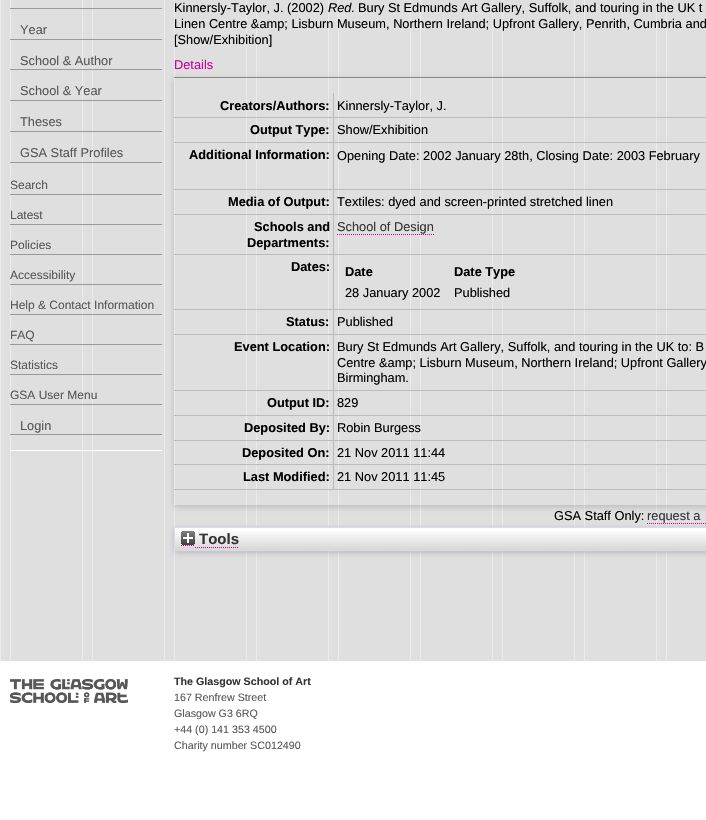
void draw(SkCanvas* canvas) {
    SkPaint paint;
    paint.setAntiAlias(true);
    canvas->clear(0xFFFFFFFF);
    canvas->drawImageRect(SkImages::DeferredFromEncodedData(SkData::MakeFromFileName("img1.png")), SkRect::MakeXYWH(0, 0, 706, 661), SkSamplingOptions());
    paint.setColor(0xFFFFFFFF);
    canvas->drawRect(SkRect::MakeXYWH(10, 450, 152, 1), paint);
    paint.setColor(0xFF999999);
    canvas->drawRect(SkRect::MakeXYWH(10, 8, 152, 1), paint);
    canvas->drawRect(SkRect::MakeXYWH(10, 39, 152, 1), paint);
    SkFont font1(fontMgr->matchFamilyStyle("Liberation Sans", SkFontStyle::Normal()), 12.8f);
    font1.setSubpixel(true);
    paint.setColor(0xFF575757);
    canvas->drawString("Year", 20, 34, font1, paint);
    paint.setColor(0xFF999999);
    canvas->drawRect(SkRect::MakeXYWH(10, 69, 152, 1), paint);
    paint.setColor(0xFF575757);
    canvas->drawString("School & Author", 20, 65, font1, paint);
    paint.setColor(0xFF999999);
    canvas->drawRect(SkRect::MakeXYWH(10, 100, 152, 1), paint);
    paint.setColor(0xFF575757);
    canvas->drawString("School & Year", 20, 95, font1, paint);
    paint.setColor(0xFF999999);
    canvas->drawRect(SkRect::MakeXYWH(10, 131, 152, 1), paint);
    paint.setColor(0xFF575757);
    canvas->drawString("Theses", 20, 126, font1, paint);
    paint.setColor(0xFF999999);
    canvas->drawRect(SkRect::MakeXYWH(10, 162, 152, 1), paint);
    paint.setColor(0xFF575757);
    canvas->drawString("GSA Staff Profiles", 20, 157, font1, paint);
    paint.setColor(0xFF999999);
    canvas->drawRect(SkRect::MakeXYWH(10, 194, 152, 1), paint);
    SkFont font2(fontMgr->matchFamilyStyle("Liberation Sans", SkFontStyle::Normal()), 12);
    font2.setSubpixel(true);
    paint.setColor(0xFF575757);
    canvas->drawString("Search", 10, 189, font2, paint);
    paint.setColor(0xFF999999);
    canvas->drawRect(SkRect::MakeXYWH(10, 224, 152, 1), paint);
    paint.setColor(0xFF575757);
    canvas->drawString("Latest", 10, 219, font2, paint);
    paint.setColor(0xFF999999);
    canvas->drawRect(SkRect::MakeXYWH(10, 254, 152, 1), paint);
    paint.setColor(0xFF575757);
    canvas->drawString("Policies", 10, 249, font2, paint);
    paint.setColor(0xFF999999);
    canvas->drawRect(SkRect::MakeXYWH(10, 284, 152, 1), paint);
    paint.setColor(0xFF575757);
    canvas->drawString("Accessibility", 10, 279, font2, paint);
    paint.setColor(0xFF999999);
    canvas->drawRect(SkRect::MakeXYWH(10, 314, 152, 1), paint);
    paint.setColor(0xFF575757);
    canvas->drawString("Help & Contact Information", 10, 309, font2, paint);
    paint.setColor(0xFF999999);
    canvas->drawRect(SkRect::MakeXYWH(10, 344, 152, 1), paint);
    paint.setColor(0xFF575757);
    canvas->drawString("FAQ", 10, 339, font2, paint);
    paint.setColor(0xFF999999);
    canvas->drawRect(SkRect::MakeXYWH(10, 374, 152, 1), paint);
    paint.setColor(0xFF575757);
    canvas->drawString("Statistics", 10, 369, font2, paint);
    paint.setColor(0xFF999999);
    canvas->drawRect(SkRect::MakeXYWH(10, 404, 152, 1), paint);
    paint.setColor(0xFF575757);
    canvas->drawString("GSA User Menu", 10, 399, font2, paint);
    paint.setColor(0xFF999999);
    canvas->drawRect(SkRect::MakeXYWH(10, 434, 152, 1), paint);
    paint.setColor(0xFF575757);
    canvas->drawString("Login", 20, 430, font1, paint);
    paint.setColor(0xFF000000);
    canvas->drawString("Kinnersly-Taylor, J. (2002)", 174, 12, font1, paint);
    SkFont font3(fontMgr->matchFamilyStyle("Liberation Sans", SkFontStyle::Italic()), 12.8f);
    font3.setSubpixel(true);
    canvas->drawString("Red.", 328, 12, font3, paint);
    canvas->drawString("Bury St Edmunds Art Gallery, Suffolk, and touring in the UK t", 358, 12, font1, paint);
    canvas->drawString("Linen Centre &amp; Lisburn Museum, Northern Ireland; Upfront Gallery, Penrith, Cumbria and", 174, 28, font1, paint);
    canvas->drawString("[Show/Exhibition]", 174, 44, font1, paint);
    canvas->save();
    canvas->clipPath(SkPathBuilder(SkPathFillType::kEvenOdd).moveTo(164, 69).lineTo(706, 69).lineTo(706, 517).lineTo(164, 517).close().moveTo(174, 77).lineTo(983, 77).lineTo(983, 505).lineTo(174, 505).close().detach(), true);
    paint.setColor(0x4D646464);
    paint.setMaskFilter(SkMaskFilter::MakeBlur(kNormal_SkBlurStyle, 3));
    canvas->drawRect(SkRect::MakeXYWH(174, 79, 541, 428), paint);
    paint.setMaskFilter(nullptr);
    canvas->restore();
    paint.setColor(0xFFCC0099);
    canvas->drawString("Details", 174, 69, font1, paint);
    paint.setColor(0xFF878787);
    canvas->drawRect(SkRect::MakeXYWH(174, 77, 532, 1), paint);
    paint.setColor(0xFFBBBBBB);
    canvas->drawRect(SkRect::MakeXYWH(333, 489, 373, 1), paint);
    canvas->drawRect(SkRect::MakeXYWH(333, 464, 1, 26), paint);
    canvas->drawRect(SkRect::MakeXYWH(333, 464, 373, 1), paint);
    canvas->drawRect(SkRect::MakeXYWH(333, 440, 1, 25), paint);
    canvas->drawRect(SkRect::MakeXYWH(333, 440, 373, 1), paint);
    canvas->drawRect(SkRect::MakeXYWH(333, 415, 1, 26), paint);
    canvas->drawRect(SkRect::MakeXYWH(333, 415, 373, 1), paint);
    canvas->drawRect(SkRect::MakeXYWH(333, 390, 1, 26), paint);
    canvas->drawRect(SkRect::MakeXYWH(333, 390, 373, 1), paint);
    canvas->drawRect(SkRect::MakeXYWH(333, 334, 1, 57), paint);
    canvas->drawRect(SkRect::MakeXYWH(333, 334, 373, 1), paint);
    canvas->drawRect(SkRect::MakeXYWH(333, 309, 1, 26), paint);
    canvas->drawRect(SkRect::MakeXYWH(333, 309, 373, 1), paint);
    canvas->drawRect(SkRect::MakeXYWH(333, 254, 1, 56), paint);
    canvas->drawRect(SkRect::MakeXYWH(333, 254, 373, 1), paint);
    canvas->drawRect(SkRect::MakeXYWH(333, 214, 1, 41), paint);
    canvas->drawRect(SkRect::MakeXYWH(333, 214, 373, 1), paint);
    canvas->drawRect(SkRect::MakeXYWH(333, 189, 1, 26), paint);
    canvas->drawRect(SkRect::MakeXYWH(333, 189, 373, 1), paint);
    canvas->drawRect(SkRect::MakeXYWH(333, 142, 1, 48), paint);
    canvas->drawRect(SkRect::MakeXYWH(333, 142, 373, 1), paint);
    canvas->drawRect(SkRect::MakeXYWH(333, 117, 1, 26), paint);
    canvas->drawRect(SkRect::MakeXYWH(333, 117, 373, 1), paint);
    canvas->drawRect(SkRect::MakeXYWH(333, 93, 1, 25), paint);
    canvas->drawRect(SkRect::MakeXYWH(174, 117, 160, 1), paint);
    SkFont font4(fontMgr->matchFamilyStyle("Liberation Sans", SkFontStyle::Bold()), 12.8f);
    font4.setSubpixel(true);
    paint.setColor(0xFF000000);
    canvas->drawString("Creators/Authors:", 220, 110, font4, paint);
    canvas->drawString("Kinnersly-Taylor, J.", 337, 110, font1, paint);
    paint.setColor(0xFFBBBBBB);
    canvas->drawRect(SkRect::MakeXYWH(174, 142, 160, 1), paint);
    paint.setColor(0xFF000000);
    canvas->drawString("Output Type:", 250, 134, font4, paint);
    canvas->drawString("Show/Exhibition", 337, 134, font1, paint);
    paint.setColor(0xFFBBBBBB);
    canvas->drawRect(SkRect::MakeXYWH(174, 189, 160, 1), paint);
    paint.setColor(0xFF000000);
    canvas->drawString("Additional Information:", 189, 159, font4, paint);
    canvas->drawString("Opening Date: 2002 January 28th, Closing Date: 2003 February", 337, 160, font1, paint);
    paint.setColor(0xFFBBBBBB);
    canvas->drawRect(SkRect::MakeXYWH(174, 214, 160, 1), paint);
    paint.setColor(0xFF000000);
    canvas->drawString("Media of Output:", 228, 206, font4, paint);
    canvas->drawString("Textiles: dyed and screen-printed stretched linen", 337, 206, font1, paint);
    paint.setColor(0xFFBBBBBB);
    canvas->drawRect(SkRect::MakeXYWH(174, 254, 160, 1), paint);
    paint.setColor(0xFF000000);
    canvas->drawString("Schools and", 254, 231, font4, paint);
    canvas->drawString("Departments:", 247, 247, font4, paint);
    paint.setColor(0xFF333333);
    canvas->drawString("School of Design", 337, 231, font1, paint);
    paint.setStyle(SkPaint::kStroke_Style);
    paint.setStrokeWidth(1);
    paint.setColor(0xFFCC0099);
    paint.setPathEffect(SkDashPathEffect::Make({{1, 1}}, 0));
    canvas->drawPath(SkPathBuilder().moveTo(337, 234.5f).lineTo(434, 234.5f).detach(), paint);
    paint.setPathEffect(nullptr);
    paint.setStyle(SkPaint::kFill_Style);
    paint.setColor(0xFFBBBBBB);
    canvas->drawRect(SkRect::MakeXYWH(174, 309, 160, 1), paint);
    paint.setColor(0xFF000000);
    canvas->drawString("Dates:", 291, 271, font4, paint);
    canvas->drawString("Date", 345, 276, font4, paint);
    canvas->drawString("Date Type", 454, 276, font4, paint);
    canvas->drawString("28 January 2002", 345, 297, font1, paint);
    canvas->drawString("Published", 454, 297, font1, paint);
    paint.setColor(0xFFBBBBBB);
    canvas->drawRect(SkRect::MakeXYWH(174, 334, 160, 1), paint);
    paint.setColor(0xFF000000);
    canvas->drawString("Status:", 286, 326, font4, paint);
    canvas->drawString("Published", 337, 326, font1, paint);
    paint.setColor(0xFFBBBBBB);
    canvas->drawRect(SkRect::MakeXYWH(174, 390, 160, 1), paint);
    paint.setColor(0xFF000000);
    canvas->drawString("Event Location:", 234, 351, font4, paint);
    canvas->drawString("Bury St Edmunds Art Gallery, Suffolk, and touring in the UK to: B", 337, 351, font1, paint);
    canvas->drawString("Centre &amp; Lisburn Museum, Northern Ireland; Upfront Gallery", 337, 367, font1, paint);
    canvas->drawString("Birmingham.", 337, 382, font1, paint);
    paint.setColor(0xFFBBBBBB);
    canvas->drawRect(SkRect::MakeXYWH(174, 415, 160, 1), paint);
    paint.setColor(0xFF000000);
    canvas->drawString("Output ID:", 267, 407, font4, paint);
    canvas->drawString("829", 337, 407, font1, paint);
    paint.setColor(0xFFBBBBBB);
    canvas->drawRect(SkRect::MakeXYWH(174, 440, 160, 1), paint);
    paint.setColor(0xFF000000);
    canvas->drawString("Deposited By:", 244, 432, font4, paint);
    canvas->drawString("Robin Burgess", 337, 432, font1, paint);
    paint.setColor(0xFFBBBBBB);
    canvas->drawRect(SkRect::MakeXYWH(174, 464, 160, 1), paint);
    paint.setColor(0xFF000000);
    canvas->drawString("Deposited On:", 242, 457, font4, paint);
    canvas->drawString("21 Nov 2011 11:44", 337, 457, font1, paint);
    paint.setColor(0xFFBBBBBB);
    canvas->drawRect(SkRect::MakeXYWH(174, 489, 160, 1), paint);
    paint.setColor(0xFF000000);
    canvas->drawString("Last Modified:", 243, 481, font4, paint);
    canvas->drawString("21 Nov 2011 11:45", 337, 481, font1, paint);
    paint.setColor(0x4D646464);
    paint.setMaskFilter(SkMaskFilter::MakeBlur(kNormal_SkBlurStyle, 3));
    canvas->drawRect(SkRect::MakeXYWH(174, 529, 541, 24), paint);
    paint.setMaskFilter(nullptr);
    paint.setColor(0xFF000000);
    canvas->drawString("GSA Staff Only:", 554, 520, font1, paint);
    paint.setColor(0xFF333333);
    canvas->drawString("request a", 647, 520, font1, paint);
    paint.setStyle(SkPaint::kStroke_Style);
    paint.setColor(0xFFCC0099);
    paint.setPathEffect(SkDashPathEffect::Make({{1, 1}}, 0));
    canvas->drawPath(SkPathBuilder().moveTo(647, 523.5f).lineTo(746, 523.5f).detach(), paint);
    paint.setPathEffect(nullptr);
    paint.setStyle(SkPaint::kFill_Style);
    paint.setColor(0xFFFFFFFF);
    canvas->drawRect(SkRect::MakeXYWH(175, 528, 531, 3), paint);
    canvas->drawImageRect(SkImages::DeferredFromEncodedData(SkData::MakeFromFileName("img2.png")), SkRect::MakeXYWH(175, 531, 531, 19), SkSamplingOptions());
    paint.setStyle(SkPaint::kStroke_Style);
    paint.setColor(0xFFD8DBEF);
    canvas->drawRect(SkRect::MakeXYWH(174.5f, 527.5f, 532, 23), paint);
    canvas->drawImageRect(SkImages::DeferredFromEncodedData(SkData::MakeFromFileName("img3.png")), SkRect::MakeXYWH(181, 531, 14, 14), SkSamplingOptions());
    SkFont font5(fontMgr->matchFamilyStyle("Liberation Sans", SkFontStyle::Bold()), 15);
    font5.setSubpixel(true);
    paint.setStyle(SkPaint::kFill_Style);
    paint.setColor(0xFF333333);
    canvas->drawString("Tools", 199, 544, font5, paint);
    paint.setStyle(SkPaint::kStroke_Style);
    paint.setColor(0xFFCC0099);
    paint.setPathEffect(SkDashPathEffect::Make({{1, 1}}, 0));
    canvas->drawPath(SkPathBuilder().moveTo(181, 545.5f).lineTo(195, 545.5f).moveTo(195, 547.5f).lineTo(238, 547.5f).detach(), paint);
    paint.setPathEffect(nullptr);
    canvas->drawImageRect(SkImages::DeferredFromEncodedData(SkData::MakeFromFileName("img4.png")), SkRect::MakeXYWH(10, 679, 118, 24), SkSamplingOptions());
    SkFont font6(fontMgr->matchFamilyStyle("Liberation Sans", SkFontStyle::Bold()), 10.7f);
    font6.setSubpixel(true);
    paint.setStyle(SkPaint::kFill_Style);
    paint.setColor(0xFF333333);
    canvas->drawString("The Glasgow School of Art", 174, 685, font6, paint);
    SkFont font7(fontMgr->matchFamilyStyle("Liberation Sans", SkFontStyle::Normal()), 10.7f);
    font7.setSubpixel(true);
    paint.setColor(0xFF575757);
    canvas->drawString("167 Renfrew Street", 174, 701, font7, paint);
    canvas->drawString("Glasgow G3 6RQ", 174, 717, font7, paint);
    canvas->drawString("+44 (0) 141 353 4500", 174, 733, font7, paint);
    canvas->drawString("Charity number SC012490", 174, 749, font7, paint);
}
